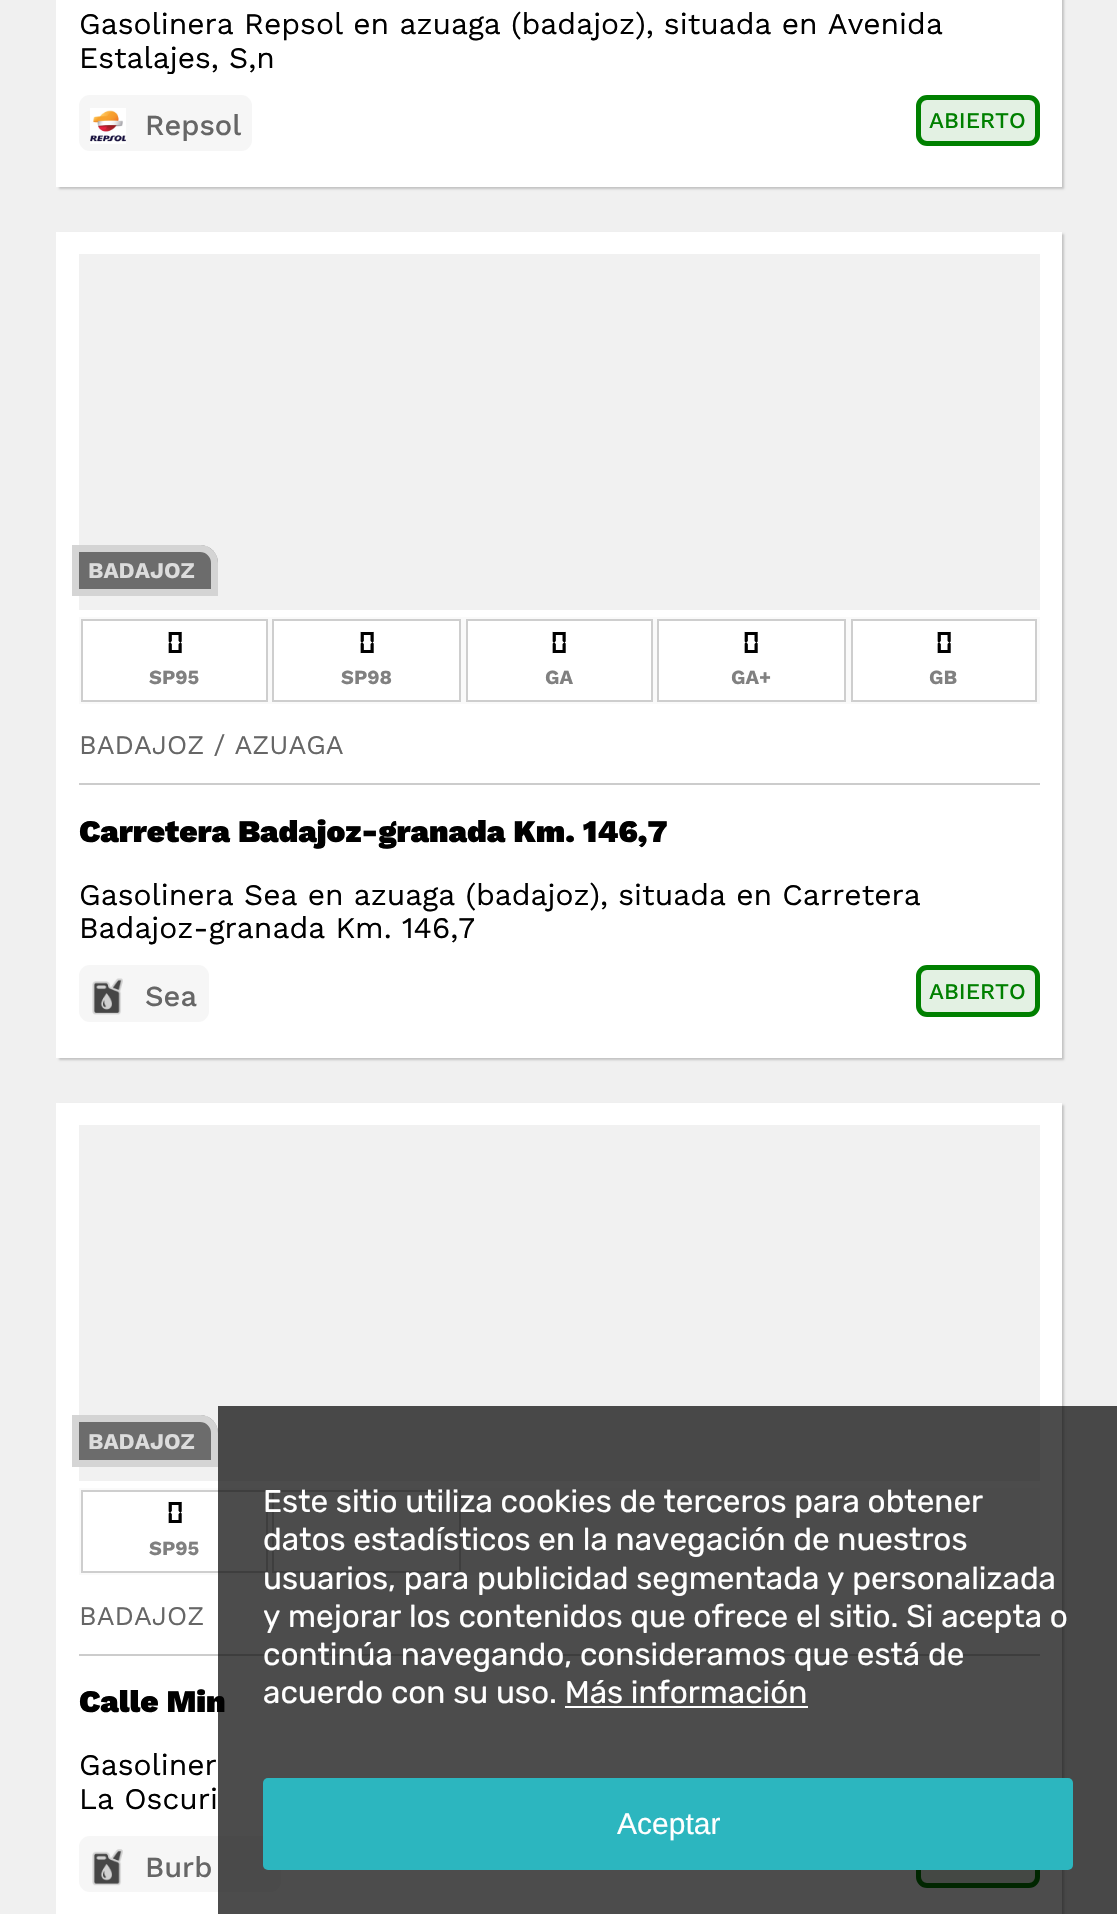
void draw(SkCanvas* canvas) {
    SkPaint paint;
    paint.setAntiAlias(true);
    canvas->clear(0xFFF0F0F0);
    paint.setColor(0x30000000);
    paint.setMaskFilter(SkMaskFilter::MakeBlur(kNormal_SkBlurStyle, 1));
    canvas->drawRect(SkRect::MakeXYWH(59, -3, 1005, 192), paint);
    paint.setMaskFilter(nullptr);
    paint.setColor(0xFFFFFFFF);
    canvas->drawRect(SkRect::MakeXYWH(56, 0, 1006, 187), paint);
    SkFont font1(fontMgr->matchFamilyStyle("Work Sans", SkFontStyle::Normal()), 30);
    font1.setSubpixel(true);
    paint.setColor(0xFF000000);
    canvas->drawString("Gasolinera Repsol en azuaga (badajoz), situada en Avenida", 79, 34, font1, paint);
    canvas->save();
    canvas->clipRect(SkRect::MakeXYWH(79, 7, 961, 67));
    canvas->drawString("Estalajes, S,n", 79, 68, font1, paint);
    canvas->restore();
    paint.setColor(0xFFF6F6F6);
    canvas->drawRoundRect(SkRect::MakeXYWH(79, 95, 173, 56), 11, 11, paint);
    canvas->drawImageRect(SkImages::DeferredFromEncodedData(SkData::MakeFromFileName("img1.png")), SkRect::MakeXYWH(90, 108, 36, 36), SkSamplingOptions());
    SkFont font2(fontMgr->matchFamilyStyle("Work Sans", SkFontStyle(500, SkFontStyle::kNormal_Width, SkFontStyle::kUpright_Slant)), 29);
    font2.setSubpixel(true);
    paint.setColor(0xFF666666);
    canvas->drawString("Repsol", 145, 135, font2, paint);
    paint.setColor(0xFFE3F1E3);
    canvas->drawRoundRect(SkRect::MakeXYWH(918.5f, 97.5f, 119, 46), 8.5f, 8.5f, paint);
    paint.setStyle(SkPaint::kStroke_Style);
    paint.setStrokeWidth(5);
    paint.setColor(0xFF008000);
    canvas->drawRoundRect(SkRect::MakeXYWH(918.5f, 97.5f, 119, 46), 8.5f, 8.5f, paint);
    SkFont font3(fontMgr->matchFamilyStyle("Work Sans", SkFontStyle(500, SkFontStyle::kNormal_Width, SkFontStyle::kUpright_Slant)), 22.5f);
    font3.setSubpixel(true);
    paint.setStyle(SkPaint::kFill_Style);
    canvas->drawString("ABIERTO", 929, 128, font3, paint);
    paint.setColor(0x30000000);
    paint.setMaskFilter(SkMaskFilter::MakeBlur(kNormal_SkBlurStyle, 1));
    canvas->drawRect(SkRect::MakeXYWH(59, 234, 1005, 826), paint);
    paint.setMaskFilter(nullptr);
    paint.setColor(0xFFFFFFFF);
    canvas->drawRect(SkRect::MakeXYWH(56, 232, 1006, 826), paint);
    paint.setColor(0xFFF1F1F1);
    canvas->drawRect(SkRect::MakeXYWH(79, 254, 961, 356), paint);
    paint.setColor(0xB3333333);
    canvas->drawPath(SkPathBuilder().moveTo(72, 545).lineTo(200, 545).cubicTo(210, 545, 218, 553, 218, 563).lineTo(218, 596).lineTo(72, 596).close().detach(), paint);
    paint.setStyle(SkPaint::kStroke_Style);
    paint.setStrokeWidth(7);
    paint.setColor(0xB3FFFFFF);
    canvas->drawPath(SkPathBuilder().moveTo(75.5f, 548.5f).lineTo(200, 548.5f).cubicTo(208, 548.5f, 214.5f, 555, 214.5f, 563).lineTo(214.5f, 592.5f).lineTo(75.5f, 592.5f).close().detach(), paint);
    SkFont font4(fontMgr->matchFamilyStyle("Work Sans", SkFontStyle::Bold()), 22.5f);
    font4.setSubpixel(true);
    paint.setStyle(SkPaint::kFill_Style);
    paint.setColor(0xFFDCDCDC);
    canvas->drawString("BADAJOZ", 88, 578, font4, paint);
    paint.setColor(0xFFFAFAFA);
    canvas->drawRect(SkRect::MakeXYWH(79, 617, 961, 87), paint);
    paint.setColor(0xFFFFFFFF);
    canvas->drawRect(SkRect::MakeXYWH(82, 620, 185, 81), paint);
    paint.setStyle(SkPaint::kStroke_Style);
    paint.setStrokeWidth(2);
    paint.setColor(0xFFCECECE);
    canvas->drawRect(SkRect::MakeXYWH(82, 620, 185, 81), paint);
    SkFont font5(fontMgr->matchFamilyStyle("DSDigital", SkFontStyle::Bold()), 31.5f);
    font5.setSubpixel(true);
    paint.setStyle(SkPaint::kFill_Style);
    paint.setColor(0xFF000000);
    canvas->drawString("0", 167, 653, font5, paint);
    SkFont font6(fontMgr->matchFamilyStyle("Work Sans", SkFontStyle::Bold()), 20);
    font6.setSubpixel(true);
    paint.setColor(0xFF808080);
    canvas->drawString("SP95", 149, 684, font6, paint);
    paint.setColor(0xFFFFFFFF);
    canvas->drawRect(SkRect::MakeXYWH(273, 620, 187, 81), paint);
    paint.setStyle(SkPaint::kStroke_Style);
    paint.setColor(0xFFCECECE);
    canvas->drawRect(SkRect::MakeXYWH(273, 620, 187, 81), paint);
    paint.setStyle(SkPaint::kFill_Style);
    paint.setColor(0xFF000000);
    canvas->drawString("0", 359, 653, font5, paint);
    paint.setColor(0xFF808080);
    canvas->drawString("SP98", 341, 684, font6, paint);
    paint.setColor(0xFFFFFFFF);
    canvas->drawRect(SkRect::MakeXYWH(467, 620, 185, 81), paint);
    paint.setStyle(SkPaint::kStroke_Style);
    paint.setColor(0xFFCECECE);
    canvas->drawRect(SkRect::MakeXYWH(467, 620, 185, 81), paint);
    paint.setStyle(SkPaint::kFill_Style);
    paint.setColor(0xFF000000);
    canvas->drawString("0", 551, 653, font5, paint);
    paint.setColor(0xFF808080);
    canvas->drawString("GA", 545, 684, font6, paint);
    paint.setColor(0xFFFFFFFF);
    canvas->drawRect(SkRect::MakeXYWH(658, 620, 187, 81), paint);
    paint.setStyle(SkPaint::kStroke_Style);
    paint.setColor(0xFFCECECE);
    canvas->drawRect(SkRect::MakeXYWH(658, 620, 187, 81), paint);
    paint.setStyle(SkPaint::kFill_Style);
    paint.setColor(0xFF000000);
    canvas->drawString("0", 743, 653, font5, paint);
    paint.setColor(0xFF808080);
    canvas->drawString("GA+", 731, 684, font6, paint);
    paint.setColor(0xFFFFFFFF);
    canvas->drawRect(SkRect::MakeXYWH(852, 620, 184, 81), paint);
    paint.setStyle(SkPaint::kStroke_Style);
    paint.setColor(0xFFCECECE);
    canvas->drawRect(SkRect::MakeXYWH(852, 620, 184, 81), paint);
    paint.setStyle(SkPaint::kFill_Style);
    paint.setColor(0xFF000000);
    canvas->drawString("0", 936, 653, font5, paint);
    paint.setColor(0xFF808080);
    canvas->drawString("GB", 929, 684, font6, paint);
    paint.setColor(0xFFCCCCCC);
    canvas->drawRect(SkRect::MakeXYWH(79, 783, 961, 2), paint);
    SkFont font7(fontMgr->matchFamilyStyle("Work Sans", SkFontStyle::Normal()), 27);
    font7.setSubpixel(true);
    paint.setColor(0xFF666666);
    canvas->drawString("BADAJOZ / AZUAGA", 79, 754, font7, paint);
    SkFont font8(fontMgr->matchFamilyStyle("Work Sans", SkFontStyle(900, SkFontStyle::kNormal_Width, SkFontStyle::kUpright_Slant)), 31.5f);
    font8.setSubpixel(true);
    paint.setColor(0xFF000000);
    canvas->drawString("Carretera Badajoz-granada Km. 146,7", 79, 842, font8, paint);
    canvas->drawString("Gasolinera Sea en azuaga (badajoz), situada en Carretera", 79, 905, font1, paint);
    canvas->drawString("Badajoz-granada Km. 146,7", 79, 938, font1, paint);
    paint.setColor(0xFFF6F6F6);
    canvas->drawRoundRect(SkRect::MakeXYWH(79, 965, 130, 57), 11, 11, paint);
    canvas->drawImageRect(SkImages::DeferredFromEncodedData(SkData::MakeFromFileName("img2.png")), SkRect::MakeXYWH(92, 978, 31, 37), SkSamplingOptions());
    paint.setColor(0xFF666666);
    canvas->drawString("Sea", 145, 1006, font2, paint);
    paint.setColor(0xFFE3F1E3);
    canvas->drawRoundRect(SkRect::MakeXYWH(918.5f, 967.5f, 119, 47), 8.5f, 8.5f, paint);
    paint.setStyle(SkPaint::kStroke_Style);
    paint.setStrokeWidth(5);
    paint.setColor(0xFF008000);
    canvas->drawRoundRect(SkRect::MakeXYWH(918.5f, 967.5f, 119, 47), 8.5f, 8.5f, paint);
    paint.setStyle(SkPaint::kFill_Style);
    canvas->drawString("ABIERTO", 929, 999, font3, paint);
    paint.setColor(0x30000000);
    paint.setMaskFilter(SkMaskFilter::MakeBlur(kNormal_SkBlurStyle, 1));
    canvas->drawRect(SkRect::MakeXYWH(59, 1105, 1005, 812), paint);
    paint.setMaskFilter(nullptr);
    paint.setColor(0xFFFFFFFF);
    canvas->drawRect(SkRect::MakeXYWH(56, 1103, 1006, 811), paint);
    paint.setColor(0xFFF1F1F1);
    canvas->drawRect(SkRect::MakeXYWH(79, 1125, 961, 356), paint);
    paint.setColor(0xB3333333);
    canvas->drawPath(SkPathBuilder().moveTo(72, 1415).lineTo(200, 1415).cubicTo(210, 1415, 218, 1423, 218, 1433).lineTo(218, 1467).lineTo(72, 1467).close().detach(), paint);
    paint.setStyle(SkPaint::kStroke_Style);
    paint.setStrokeWidth(7);
    paint.setColor(0xB3FFFFFF);
    canvas->drawPath(SkPathBuilder().moveTo(75.5f, 1418.5f).lineTo(200, 1418.5f).cubicTo(208, 1418.5f, 214.5f, 1425, 214.5f, 1433).lineTo(214.5f, 1463.5f).lineTo(75.5f, 1463.5f).close().detach(), paint);
    paint.setStyle(SkPaint::kFill_Style);
    paint.setColor(0xFFDCDCDC);
    canvas->drawString("BADAJOZ", 88, 1449, font4, paint);
    paint.setColor(0xFFFAFAFA);
    canvas->drawRect(SkRect::MakeXYWH(79, 1488, 961, 87), paint);
    paint.setColor(0xFFFFFFFF);
    canvas->drawRect(SkRect::MakeXYWH(82, 1491, 185, 81), paint);
    paint.setStyle(SkPaint::kStroke_Style);
    paint.setStrokeWidth(2);
    paint.setColor(0xFFCECECE);
    canvas->drawRect(SkRect::MakeXYWH(82, 1491, 185, 81), paint);
    paint.setStyle(SkPaint::kFill_Style);
    paint.setColor(0xFF000000);
    canvas->drawString("0", 167, 1523, font5, paint);
    paint.setColor(0xFF808080);
    canvas->drawString("SP95", 149, 1555, font6, paint);
    paint.setColor(0xFFFFFFFF);
    canvas->drawRect(SkRect::MakeXYWH(273, 1491, 187, 81), paint);
    paint.setStyle(SkPaint::kStroke_Style);
    paint.setColor(0xFFCECECE);
    canvas->drawRect(SkRect::MakeXYWH(273, 1491, 187, 81), paint);
    paint.setStyle(SkPaint::kFill_Style);
    paint.setColor(0xFFCCCCCC);
    canvas->drawRect(SkRect::MakeXYWH(79, 1654, 961, 2), paint);
    paint.setColor(0xFF666666);
    canvas->drawString("BADAJOZ", 79, 1625, font7, paint);
    paint.setColor(0xFF000000);
    canvas->drawString("Calle Min", 79, 1712, font8, paint);
    canvas->drawString("Gasoliner", 79, 1775, font1, paint);
    canvas->drawString("La Oscuri", 79, 1809, font1, paint);
    paint.setColor(0xFFF6F6F6);
    canvas->drawRoundRect(SkRect::MakeXYWH(79, 1836, 202, 56), 11, 11, paint);
    canvas->drawImageRect(SkImages::DeferredFromEncodedData(SkData::MakeFromFileName("img3.png")), SkRect::MakeXYWH(92, 1849, 31, 37), SkSamplingOptions());
    paint.setColor(0xFF666666);
    canvas->drawString("Burb", 145, 1877, font2, paint);
    paint.setColor(0xFFE3F1E3);
    canvas->drawRoundRect(SkRect::MakeXYWH(918.5f, 1838.5f, 119, 47), 8.5f, 8.5f, paint);
    paint.setStyle(SkPaint::kStroke_Style);
    paint.setStrokeWidth(5);
    paint.setColor(0xFF008000);
    canvas->drawRoundRect(SkRect::MakeXYWH(918.5f, 1838.5f, 119, 47), 8.5f, 8.5f, paint);
    paint.setStyle(SkPaint::kFill_Style);
    paint.setColor(0xB3000000);
    canvas->drawRect(SkRect::MakeXYWH(218, 1406, 899, 508), paint);
    SkFont font9(fontMgr->matchFamilyStyle("Rubik", SkFontStyle::Normal()), 31.5f);
    font9.setSubpixel(true);
    paint.setColor(0xFFFFFFFF);
    canvas->drawString("Este sitio utiliza cookies de terceros para obtener", 263, 1512, font9, paint);
    canvas->drawString("datos estadísticos en la navegación de nuestros", 263, 1550, font9, paint);
    canvas->drawString("usuarios, para publicidad segmentada y personalizada", 263, 1589, font9, paint);
    canvas->drawString("y mejorar los contenidos que ofrece el sitio. Si acepta o", 263, 1627, font9, paint);
    canvas->drawString("continúa navegando, consideramos que está de", 263, 1665, font9, paint);
    canvas->drawString("acuerdo con su uso. Más información", 263, 1703, font9, paint);
    canvas->drawRect(SkRect::MakeXYWH(565, 1706, 243, 2), paint);
    paint.setColor(0xFF2CB6BF);
    canvas->drawRoundRect(SkRect::MakeXYWH(263, 1778, 810, 92), 5, 5, paint);
    SkFont font10(fontMgr->matchFamilyStyle("Liberation Sans", SkFontStyle::Normal()), 30);
    font10.setSubpixel(true);
    paint.setColor(0xFFFFFFFF);
    canvas->drawString("Aceptar", 617, 1834, font10, paint);
}
